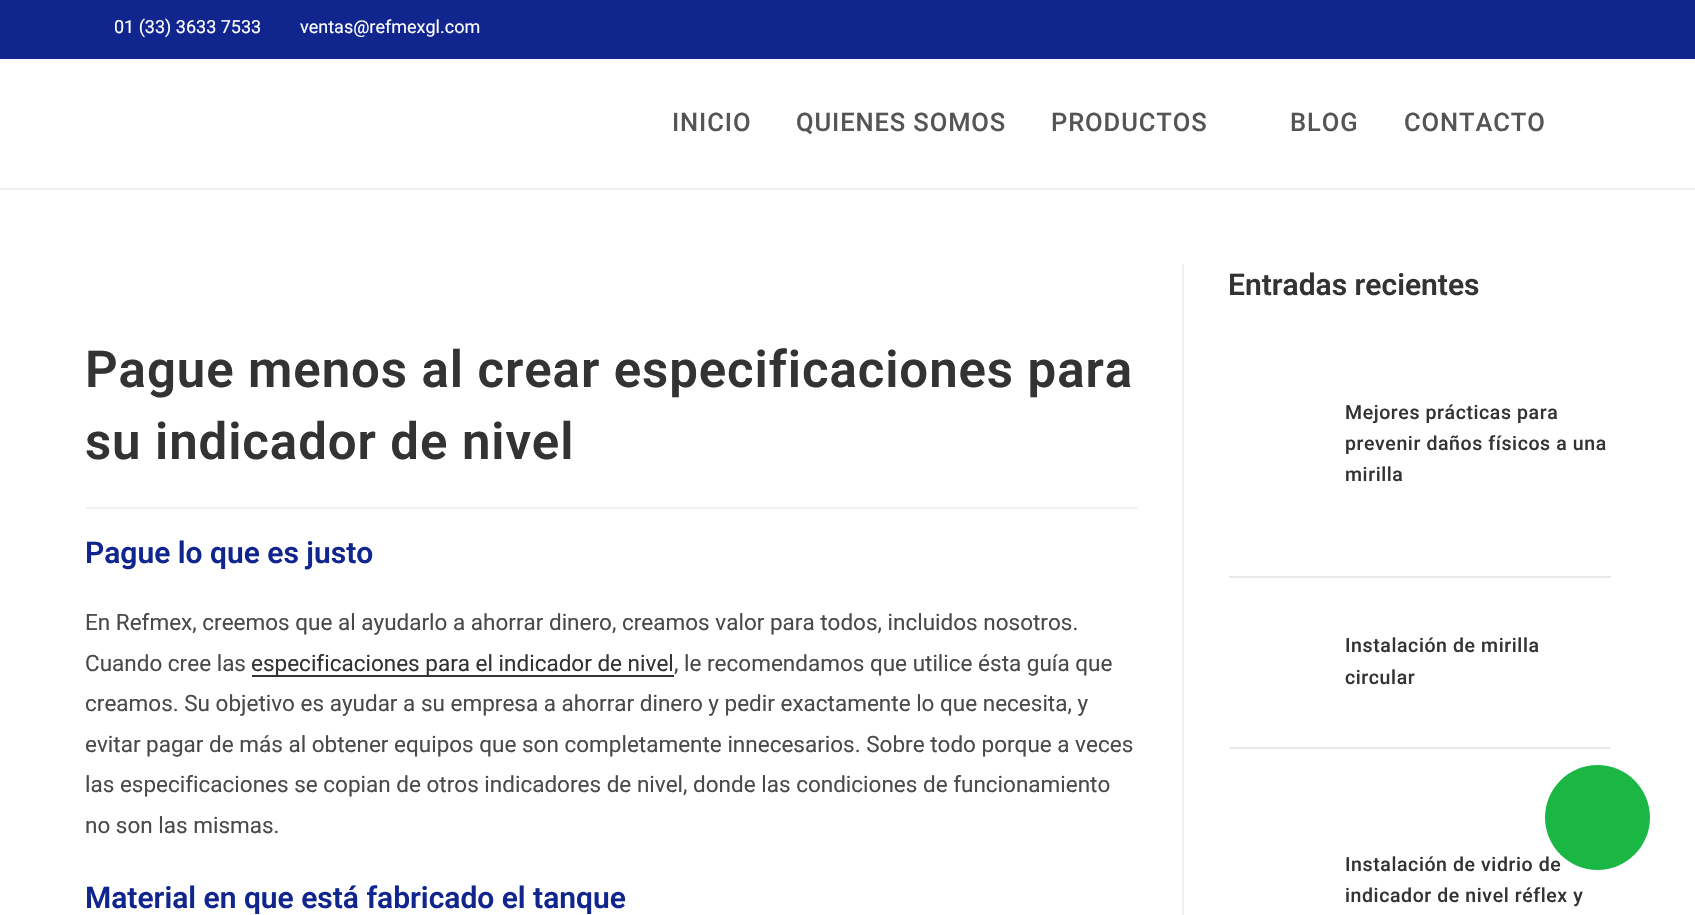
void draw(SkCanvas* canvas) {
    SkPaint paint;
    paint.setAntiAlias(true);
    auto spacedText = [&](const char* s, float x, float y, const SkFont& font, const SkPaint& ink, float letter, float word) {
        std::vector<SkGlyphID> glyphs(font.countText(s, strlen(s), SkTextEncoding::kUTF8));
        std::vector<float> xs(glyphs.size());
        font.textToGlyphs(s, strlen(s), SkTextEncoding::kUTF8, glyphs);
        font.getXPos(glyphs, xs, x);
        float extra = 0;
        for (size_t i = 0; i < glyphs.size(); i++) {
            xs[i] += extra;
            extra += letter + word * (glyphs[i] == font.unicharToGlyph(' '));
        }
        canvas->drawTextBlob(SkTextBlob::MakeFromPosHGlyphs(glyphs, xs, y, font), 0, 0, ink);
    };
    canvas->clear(0xFFFFFFFF);
    paint.setColor(0xFF11258E);
    canvas->drawRect(SkRect::MakeXYWH(0, 0, 1695, 59), paint);
    SkFont font1(fontMgr->matchFamilyStyle("Roboto", SkFontStyle::Normal()), 18);
    font1.setSubpixel(true);
    paint.setColor(0xFFFFFFFF);
    canvas->drawString("01 (33) 3633 7533", 114, 33, font1, paint);
    canvas->drawString("ventas@refmexgl.com", 300, 33, font1, paint);
    paint.setColor(0xFFF1F1F1);
    canvas->drawRect(SkRect::MakeXYWH(0, 188, 1695, 2), paint);
    SkFont font2(fontMgr->matchFamilyStyle("Roboto", SkFontStyle(500, SkFontStyle::kNormal_Width, SkFontStyle::kUpright_Slant)), 25.5f);
    font2.setSubpixel(true);
    paint.setColor(0xFF555555);
    spacedText("INICIO", 672, 131, font2, paint, 0.9f, 0);
    spacedText("QUIENES SOMOS", 796, 131, font2, paint, 0.9f, 0);
    spacedText("PRODUCTOS", 1051, 131, font2, paint, 0.9f, 0);
    spacedText("BLOG", 1290, 131, font2, paint, 0.9f, 0);
    spacedText("CONTACTO", 1404, 131, font2, paint, 0.9f, 0);
    paint.setColor(0xFFF1F1F1);
    canvas->drawRect(SkRect::MakeXYWH(1182, 264, 2, 651), paint);
    canvas->drawRect(SkRect::MakeXYWH(86, 507, 1051, 2), paint);
    SkFont font3(fontMgr->matchFamilyStyle("Roboto", SkFontStyle(600, SkFontStyle::kNormal_Width, SkFontStyle::kUpright_Slant)), 51);
    font3.setSubpixel(true);
    paint.setColor(0xFF333333);
    spacedText("Pague menos al crear especificaciones para", 85, 387, font3, paint, 0.9f, 0);
    spacedText("su indicador de nivel", 85, 459, font3, paint, 0.9f, 0);
    SkFont font4(fontMgr->matchFamilyStyle("Roboto", SkFontStyle(600, SkFontStyle::kNormal_Width, SkFontStyle::kUpright_Slant)), 30);
    font4.setSubpixel(true);
    paint.setColor(0xFF11258E);
    canvas->drawString("Pague lo que es justo", 85, 563, font4, paint);
    SkFont font5(fontMgr->matchFamilyStyle("Roboto", SkFontStyle::Normal()), 22.5f);
    font5.setSubpixel(true);
    paint.setColor(0xFF4A4A4A);
    canvas->drawString("En Refmex, creemos que al ayudarlo a ahorrar dinero, creamos valor para todos, incluidos nosotros.", 85, 630, font5, paint);
    canvas->drawString("Cuando cree las", 85, 671, font5, paint);
    paint.setColor(0xFF333333);
    canvas->drawRect(SkRect::MakeXYWH(252, 675, 422, 2), paint);
    canvas->drawString("especificaciones para el indicador de nivel", 251, 671, font5, paint);
    paint.setColor(0xFF4A4A4A);
    canvas->drawString(", le recomendamos que utilice ésta guía que", 674, 671, font5, paint);
    canvas->drawString("creamos. Su objetivo es ayudar a su empresa a ahorrar dinero y pedir exactamente lo que necesita, y", 85, 711, font5, paint);
    canvas->drawString("evitar pagar de más al obtener equipos que son completamente innecesarios. Sobre todo porque a veces", 85, 752, font5, paint);
    canvas->drawString("las especificaciones se copian de otros indicadores de nivel, donde las condiciones de funcionamiento", 85, 792, font5, paint);
    canvas->drawString("no son las mismas.", 85, 833, font5, paint);
    paint.setColor(0xFF11258E);
    canvas->drawString("Material en que está fabricado el tanque", 85, 908, font4, paint);
    paint.setColor(0xFF333333);
    canvas->drawString("Entradas recientes", 1228, 295, font4, paint);
    SkFont font6(fontMgr->matchFamilyStyle("Roboto", SkFontStyle(500, SkFontStyle::kNormal_Width, SkFontStyle::kUpright_Slant)), 19.5f);
    font6.setSubpixel(true);
    spacedText("Mejores prácticas para", 1345, 419, font6, paint, 0.6f, 0);
    spacedText("prevenir daños físicos a una", 1345, 450, font6, paint, 0.6f, 0);
    spacedText("mirilla", 1345, 481, font6, paint, 0.6f, 0);
    paint.setColor(0xFFE9E9E9);
    canvas->drawRect(SkRect::MakeXYWH(1229, 576, 382, 2), paint);
    paint.setColor(0xFF333333);
    spacedText("Instalación de mirilla", 1345, 652, font6, paint, 0.6f, 0);
    spacedText("circular", 1345, 684, font6, paint, 0.6f, 0);
    paint.setColor(0xFFE9E9E9);
    canvas->drawRect(SkRect::MakeXYWH(1229, 747, 382, 2), paint);
    paint.setColor(0xFF333333);
    spacedText("Instalación de vidrio de", 1345, 871, font6, paint, 0.6f, 0);
    spacedText("indicador de nivel réflex y", 1345, 902, font6, paint, 0.6f, 0);
    paint.setColor(0xFF1AB744);
    canvas->drawCircle(1597.5f, 817.5f, 52.5f, paint);
}
